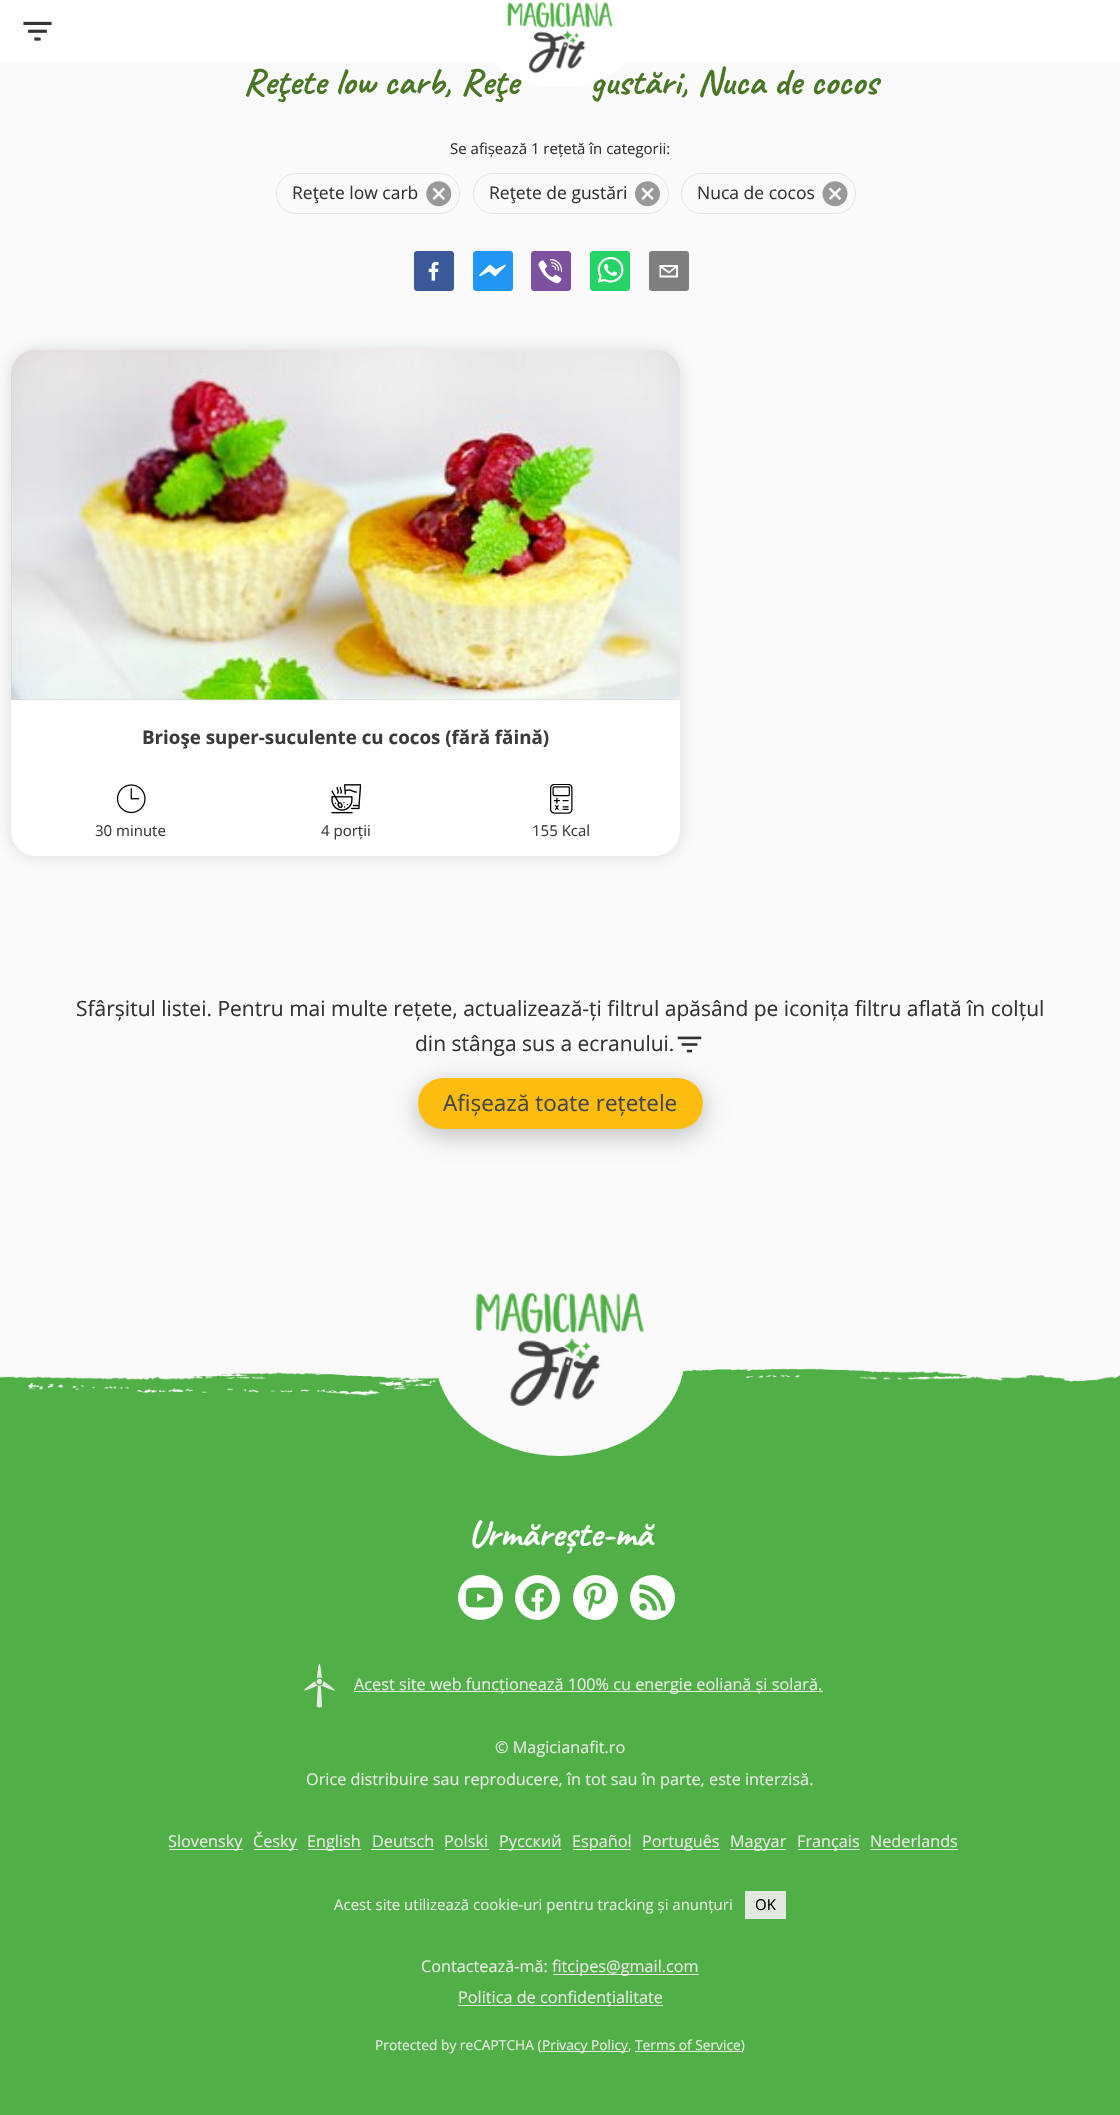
void draw(SkCanvas* canvas) {
    SkPaint paint;
    paint.setAntiAlias(true);
    canvas->clear(0xFFFAFAFA);
    paint.setColor(0xFFFFFFFF);
    canvas->drawRect(SkRect::MakeXYWH(0, 0, 1120, 63), paint);
    canvas->drawImageRect(SkImages::DeferredFromEncodedData(SkData::MakeFromFileName("img1.png")), SkRect::MakeXYWH(23, 21, 29, 20), SkSamplingOptions());
    SkFont font1(fontMgr->matchFamilyStyle("Caveat", SkFontStyle::Bold()), 37.5f);
    font1.setSubpixel(true);
    paint.setColor(0xFF4A7726);
    canvas->drawString("Reţete low carb, Reţe", 243, 94, font1, paint);
    canvas->drawString("gustări, Nuca de cocos", 590, 94, font1, paint);
    paint.setColor(0xFFFFFFFF);
    canvas->drawOval(SkRect::MakeXYWH(485, -12.5f, 150, 100), paint);
    canvas->drawImageRect(SkImages::DeferredFromEncodedData(SkData::MakeFromFileName("img2.png")), SkRect::MakeXYWH(507, 2, 106, 71), SkSamplingOptions());
    SkFont font2(fontMgr->matchFamilyStyle("Open Sans", SkFontStyle::Normal()), 15);
    font2.setSubpixel(true);
    paint.setColor(0xFF333333);
    canvas->drawString("Se afișează 1 rețetă în categorii:", 450, 154, font2, paint);
    paint.setStyle(SkPaint::kStroke_Style);
    paint.setStrokeWidth(1);
    paint.setColor(0xFFE5E5E5);
    canvas->drawRoundRect(SkRect::MakeXYWH(276.5f, 173.5f, 183, 40), 19.5f, 19.5f, paint);
    SkFont font3(fontMgr->matchFamilyStyle("Open Sans", SkFontStyle::Normal()), 17.5f);
    font3.setSubpixel(true);
    paint.setStyle(SkPaint::kFill_Style);
    paint.setColor(0xFF333333);
    canvas->drawString("Reţete low carb", 292, 199, font3, paint);
    canvas->drawImageRect(SkImages::DeferredFromEncodedData(SkData::MakeFromFileName("img3.png")), SkRect::MakeXYWH(426, 181, 26, 26), SkSamplingOptions());
    paint.setStyle(SkPaint::kStroke_Style);
    paint.setColor(0xFFE5E5E5);
    canvas->drawRoundRect(SkRect::MakeXYWH(473.5f, 173.5f, 195, 40), 19.5f, 19.5f, paint);
    paint.setStyle(SkPaint::kFill_Style);
    paint.setColor(0xFF333333);
    canvas->drawString("Reţete de gustări", 489, 199, font3, paint);
    canvas->drawImageRect(SkImages::DeferredFromEncodedData(SkData::MakeFromFileName("img4.png")), SkRect::MakeXYWH(635, 181, 25, 26), SkSamplingOptions());
    paint.setStyle(SkPaint::kStroke_Style);
    paint.setColor(0xFFE5E5E5);
    canvas->drawRoundRect(SkRect::MakeXYWH(681.5f, 173.5f, 174, 40), 19.5f, 19.5f, paint);
    paint.setStyle(SkPaint::kFill_Style);
    paint.setColor(0xFF333333);
    canvas->drawString("Nuca de cocos", 697, 199, font3, paint);
    canvas->drawImageRect(SkImages::DeferredFromEncodedData(SkData::MakeFromFileName("img5.png")), SkRect::MakeXYWH(822, 181, 26, 26), SkSamplingOptions());
    canvas->drawImageRect(SkImages::DeferredFromEncodedData(SkData::MakeFromFileName("img6.png")), SkRect::MakeXYWH(414, 251, 40, 40), SkSamplingOptions());
    canvas->drawImageRect(SkImages::DeferredFromEncodedData(SkData::MakeFromFileName("img7.png")), SkRect::MakeXYWH(473, 251, 40, 40), SkSamplingOptions());
    canvas->drawImageRect(SkImages::DeferredFromEncodedData(SkData::MakeFromFileName("img8.png")), SkRect::MakeXYWH(531, 251, 40, 40), SkSamplingOptions());
    canvas->drawImageRect(SkImages::DeferredFromEncodedData(SkData::MakeFromFileName("img9.png")), SkRect::MakeXYWH(590, 251, 40, 40), SkSamplingOptions());
    paint.setColor(0xFF7F7F7F);
    canvas->drawRoundRect(SkRect::MakeXYWH(649, 251, 40, 40), 3, 3, paint);
    paint.setColor(0xFFFFFFFF);
    canvas->drawPath(SkPathBuilder().moveTo(659.5f, 265).lineTo(659.5f, 277.5f).lineTo(678, 277.5f).lineTo(678, 265).close().moveTo(674.5f, 267).lineTo(669, 271.5f).lineTo(663, 267).close().moveTo(661, 275.5f).lineTo(661, 268).lineTo(669, 273.5f).lineTo(676, 268).lineTo(676, 275.5f).close().detach(), paint);
    paint.setColor(0x26323232);
    paint.setMaskFilter(SkMaskFilter::MakeBlur(kNormal_SkBlurStyle, 8));
    canvas->drawRoundRect(SkRect::MakeXYWH(11, 350, 669, 506), 25, 25, paint);
    paint.setMaskFilter(nullptr);
    paint.setColor(0xFFFFFFFF);
    canvas->drawRoundRect(SkRect::MakeXYWH(11, 350, 669, 506), 25, 25, paint);
    paint.setColor(0xFFD2D5CE);
    canvas->drawPath(SkPathBuilder().moveTo(36, 350).lineTo(655, 350).cubicTo(669, 350, 680, 361, 680, 375).lineTo(680, 700).lineTo(11, 700).lineTo(11, 375).cubicTo(11, 361, 22, 350, 36, 350).close().detach(), paint);
    canvas->drawImageRect(SkImages::DeferredFromEncodedData(SkData::MakeFromFileName("img10.png")), SkRect::MakeXYWH(11, 349, 669, 351), SkSamplingOptions());
    SkFont font4(fontMgr->matchFamilyStyle("Open Sans", SkFontStyle::Bold()), 18.75f);
    font4.setSubpixel(true);
    paint.setColor(0xFF3B3A3A);
    canvas->drawString("Brioşe super-suculente cu cocos (fără făină)", 142, 744, font4, paint);
    canvas->drawImageRect(SkImages::DeferredFromEncodedData(SkData::MakeFromFileName("img11.png")), SkRect::MakeXYWH(116, 784, 30, 30), SkSamplingOptions());
    canvas->drawString("30 minute", 95, 836, font2, paint);
    canvas->drawImageRect(SkImages::DeferredFromEncodedData(SkData::MakeFromFileName("img12.png")), SkRect::MakeXYWH(331, 784, 30, 30), SkSamplingOptions());
    canvas->drawString("4 porții", 321, 836, font2, paint);
    canvas->drawImageRect(SkImages::DeferredFromEncodedData(SkData::MakeFromFileName("img13.png")), SkRect::MakeXYWH(550, 784, 23, 30), SkSamplingOptions());
    canvas->drawString("155 Kcal", 532, 836, font2, paint);
    SkFont font5(fontMgr->matchFamilyStyle("Open Sans", SkFontStyle::Normal()), 21);
    font5.setSubpixel(true);
    paint.setColor(0xFF333333);
    canvas->drawString("Sfârșitul listei. Pentru mai multe rețete, actualizează-ți filtrul apăsând pe iconița filtru aflată în colțul", 76, 1016, font5, paint);
    canvas->drawString("din stânga sus a ecranului.", 415, 1051, font5, paint);
    paint.setColor(0x40000000);
    paint.setMaskFilter(SkMaskFilter::MakeBlur(kNormal_SkBlurStyle, 12));
    canvas->drawRoundRect(SkRect::MakeXYWH(418, 1084, 285, 51), 25, 25, paint);
    paint.setMaskFilter(nullptr);
    canvas->drawImageRect(SkImages::DeferredFromEncodedData(SkData::MakeFromFileName("img14.png")), SkRect::MakeXYWH(677, 1036, 25, 17), SkSamplingOptions());
    paint.setColor(0xFFFDBD10);
    canvas->drawRoundRect(SkRect::MakeXYWH(418, 1078, 285, 51), 25, 25, paint);
    SkFont font6(fontMgr->matchFamilyStyle("Open Sans", SkFontStyle::Normal()), 22.5f);
    font6.setSubpixel(true);
    paint.setColor(0xFF464646);
    canvas->drawString("Afișează toate rețetele", 443, 1111, font6, paint);
    paint.setColor(0xFF50AF47);
    canvas->drawRect(SkRect::MakeXYWH(0, 1396, 1120, 719), paint);
    canvas->drawImageRect(SkImages::DeferredFromEncodedData(SkData::MakeFromFileName("img15.png")), SkRect::MakeXYWH(0, 1354, 1120, 42), SkSamplingOptions());
    paint.setColor(0xFFFAFAFA);
    canvas->drawOval(SkRect::MakeXYWH(435, 1254, 250, 202), paint);
    canvas->drawImageRect(SkImages::DeferredFromEncodedData(SkData::MakeFromFileName("img16.png")), SkRect::MakeXYWH(476, 1293, 168, 113), SkSamplingOptions());
    paint.setColor(0xFFFFFFFF);
    canvas->drawString("Urmărește-mă", 468, 1546, font1, paint);
    canvas->drawCircle(480.5f, 1597.5f, 22.5f, paint);
    canvas->drawCircle(537.5f, 1597.5f, 22.5f, paint);
    canvas->drawCircle(595.5f, 1597.5f, 22.5f, paint);
    canvas->drawCircle(652.5f, 1597.5f, 22.5f, paint);
    canvas->drawImageRect(SkImages::DeferredFromEncodedData(SkData::MakeFromFileName("img17.png")), SkRect::MakeXYWH(465, 1587, 30, 21), SkSamplingOptions());
    canvas->drawImageRect(SkImages::DeferredFromEncodedData(SkData::MakeFromFileName("img18.png")), SkRect::MakeXYWH(523, 1583, 29, 29), SkSamplingOptions());
    canvas->drawImageRect(SkImages::DeferredFromEncodedData(SkData::MakeFromFileName("img19.png")), SkRect::MakeXYWH(583, 1582, 24, 31), SkSamplingOptions());
    canvas->drawImageRect(SkImages::DeferredFromEncodedData(SkData::MakeFromFileName("img20.png")), SkRect::MakeXYWH(639, 1584, 27, 27), SkSamplingOptions());
    canvas->drawImageRect(SkImages::DeferredFromEncodedData(SkData::MakeFromFileName("img21.png")), SkRect::MakeXYWH(304, 1664, 31, 44), SkSamplingOptions());
    paint.setColor(0xFFE6EBE3);
    canvas->drawRect(SkRect::MakeXYWH(354, 1691, 469, 1), paint);
    SkFont font7(fontMgr->matchFamilyStyle("Open Sans", SkFontStyle::Normal()), 16.25f);
    font7.setSubpixel(true);
    canvas->drawString("Acest site web funcționează 100% cu energie eoliană și solară.", 354, 1690, font7, paint);
    canvas->drawString("© Magicianafit.ro", 495, 1753, font7, paint);
    canvas->drawString("Orice distribuire sau reproducere, în tot sau în parte, este interzisă.", 306, 1785, font7, paint);
    canvas->drawRect(SkRect::MakeXYWH(169, 1849, 74, 1), paint);
    canvas->drawString("Slovensky", 168, 1847, font7, paint);
    canvas->drawRect(SkRect::MakeXYWH(254, 1849, 44, 1), paint);
    canvas->drawString("Česky", 253, 1847, font7, paint);
    canvas->drawRect(SkRect::MakeXYWH(308, 1849, 53, 1), paint);
    canvas->drawString("English", 307, 1847, font7, paint);
    canvas->drawString("Deutsch", 372, 1847, font7, paint);
    canvas->drawRect(SkRect::MakeXYWH(371, 1849, 63, 1), paint);
    canvas->drawString("Polski", 444, 1847, font7, paint);
    canvas->drawRect(SkRect::MakeXYWH(445, 1849, 44, 1), paint);
    canvas->drawRect(SkRect::MakeXYWH(499, 1849, 62, 1), paint);
    canvas->drawString("Русский", 499, 1847, font7, paint);
    canvas->drawRect(SkRect::MakeXYWH(573, 1849, 58, 1), paint);
    canvas->drawString("Español", 572, 1847, font7, paint);
    canvas->drawRect(SkRect::MakeXYWH(643, 1849, 77, 1), paint);
    canvas->drawString("Português", 642, 1847, font7, paint);
    canvas->drawRect(SkRect::MakeXYWH(730, 1849, 56, 1), paint);
    canvas->drawString("Magyar", 730, 1847, font7, paint);
    canvas->drawRect(SkRect::MakeXYWH(798, 1849, 62, 1), paint);
    canvas->drawString("Français", 797, 1847, font7, paint);
    canvas->drawString("Nederlands", 870, 1847, font7, paint);
    canvas->drawRect(SkRect::MakeXYWH(870, 1849, 88, 1), paint);
    canvas->drawString("Acest site utilizează cookie-uri pentru tracking și anunțuri", 334, 1910, font2, paint);
    paint.setColor(0xFFE2EADF);
    canvas->drawRect(SkRect::MakeXYWH(745, 1891, 41, 28), paint);
    paint.setColor(0xFF000000);
    canvas->drawString("OK", 755, 1910, font2, paint);
    paint.setColor(0xFFE6EBE3);
    canvas->drawString("Contactează-mă:", 421, 1972, font7, paint);
    canvas->drawRect(SkRect::MakeXYWH(553, 1974, 146, 1), paint);
    canvas->drawString("fitcipes@gmail.com", 552, 1972, font7, paint);
    canvas->drawRect(SkRect::MakeXYWH(458, 2005, 205, 1), paint);
    canvas->drawString("Politica de confidențialitate", 458, 2003, font7, paint);
    SkFont font8(fontMgr->matchFamilyStyle("Open Sans", SkFontStyle::Normal()), 13.75f);
    font8.setSubpixel(true);
    canvas->drawString("Protected by reCAPTCHA (", 375, 2050, font8, paint);
    canvas->drawRect(SkRect::MakeXYWH(541, 2051, 87, 1), paint);
    canvas->drawString("Privacy Policy, Terms of Service)", 542, 2050, font8, paint);
    canvas->drawRect(SkRect::MakeXYWH(635, 2051, 106, 1), paint);
}
